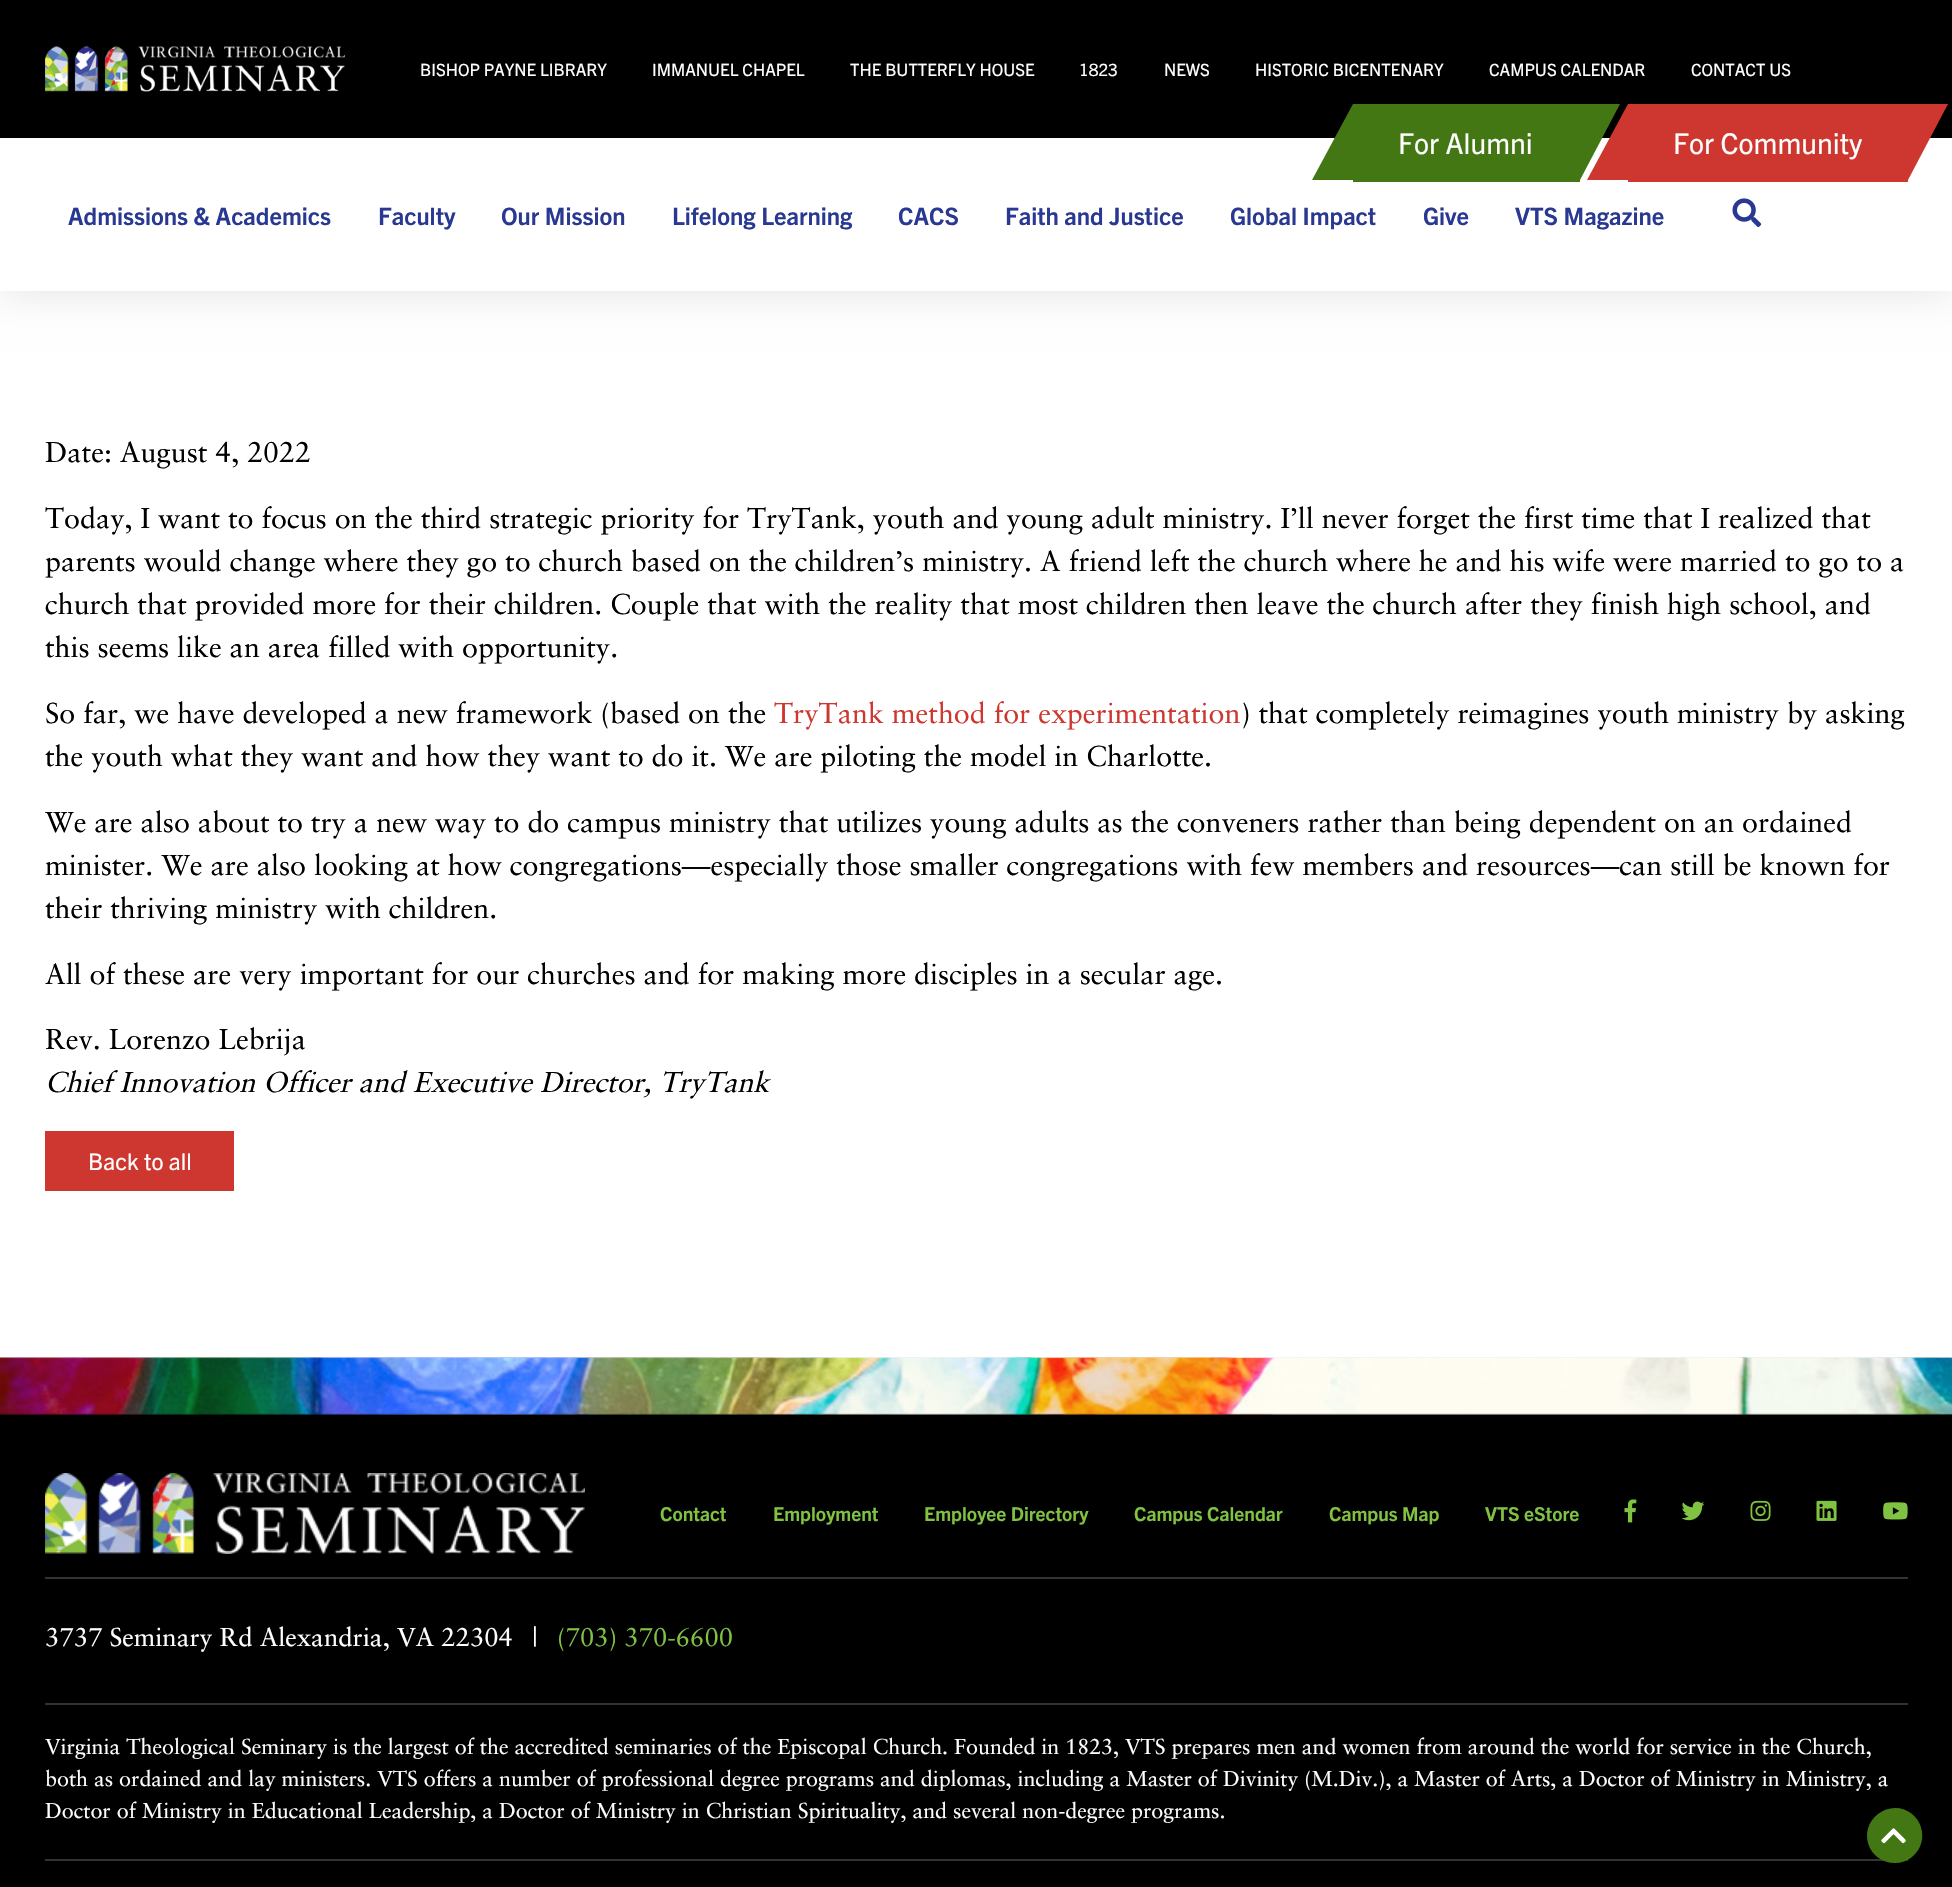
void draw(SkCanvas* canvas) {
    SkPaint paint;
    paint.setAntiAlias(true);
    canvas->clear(0xFFFFFFFF);
    paint.setColor(0x1A000000);
    paint.setMaskFilter(SkMaskFilter::MakeBlur(kNormal_SkBlurStyle, 19));
    canvas->drawRect(SkRect::MakeXYWH(0, 3, 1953, 291), paint);
    paint.setMaskFilter(nullptr);
    paint.setColor(0xFFFFFFFF);
    canvas->drawRect(SkRect::MakeXYWH(0, 138, 1952, 153), paint);
    paint.setColor(0xFF000000);
    canvas->drawRect(SkRect::MakeXYWH(0, 0, 1952, 138), paint);
    canvas->drawImageRect(SkImages::DeferredFromEncodedData(SkData::MakeFromFileName("img1.png")), SkRect::MakeXYWH(45, 46, 300, 46), SkSamplingOptions());
    SkFont font1(fontMgr->matchFamilyStyle("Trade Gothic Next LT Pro", SkFontStyle::Normal()), 16.9f);
    font1.setSubpixel(true);
    paint.setColor(0xFFFFFFFF);
    canvas->drawString("BISHOP PAYNE LIBRARY", 420, 76, font1, paint);
    canvas->drawString("IMMANUEL CHAPEL", 652, 76, font1, paint);
    canvas->drawString("THE BUTTERFLY HOUSE", 850, 76, font1, paint);
    canvas->drawString("1823", 1079, 76, font1, paint);
    canvas->drawString("NEWS", 1164, 76, font1, paint);
    canvas->drawString("HISTORIC BICENTENARY", 1255, 76, font1, paint);
    canvas->drawString("CAMPUS CALENDAR", 1489, 76, font1, paint);
    canvas->drawString("CONTACT US", 1691, 76, font1, paint);
    paint.setColor(0xFF437714);
    canvas->drawRect(SkRect::MakeXYWH(1353, 104, 227, 78), paint);
    canvas->drawPath(SkPathBuilder().moveTo(1353, 180).lineTo(1312, 180).lineTo(1353, 104).close().detach(), paint);
    SkFont font2(fontMgr->matchFamilyStyle("Trade Gothic Next LT Pro", SkFontStyle::Normal()), 28.65f);
    font2.setSubpixel(true);
    paint.setColor(0xFFFFFFFF);
    canvas->drawString("For Alumni", 1398, 154, font2, paint);
    paint.setColor(0xFF437714);
    canvas->drawPath(SkPathBuilder().moveTo(1580, 104).lineTo(1620, 104).lineTo(1580, 180).close().detach(), paint);
    paint.setColor(0xFFCE372F);
    canvas->drawRect(SkRect::MakeXYWH(1628, 104, 280, 78), paint);
    canvas->drawPath(SkPathBuilder().moveTo(1628, 180).lineTo(1587, 180).lineTo(1628, 104).close().detach(), paint);
    paint.setColor(0xFFFFFFFF);
    canvas->drawString("For Community", 1673, 154, font2, paint);
    paint.setColor(0xFFCE372F);
    canvas->drawPath(SkPathBuilder().moveTo(1908, 104).lineTo(1948, 104).lineTo(1908, 180).close().detach(), paint);
    SkFont font3(fontMgr->matchFamilyStyle("Trade Gothic Next LT Pro", SkFontStyle::Bold()), 24);
    font3.setSubpixel(true);
    paint.setColor(0xFF293891);
    canvas->drawString("Admissions & Academics", 68, 225, font3, paint);
    canvas->drawString("Faculty", 378, 225, font3, paint);
    canvas->drawString("Our Mission", 501, 225, font3, paint);
    canvas->drawString("Lifelong Learning", 672, 225, font3, paint);
    canvas->drawString("CACS", 898, 225, font3, paint);
    canvas->drawString("Faith and Justice", 1005, 225, font3, paint);
    canvas->drawString("Global Impact", 1230, 225, font3, paint);
    canvas->drawString("Give", 1423, 225, font3, paint);
    canvas->drawString("VTS Magazine", 1515, 225, font3, paint);
    canvas->drawImageRect(SkImages::DeferredFromEncodedData(SkData::MakeFromFileName("img2.png")), SkRect::MakeXYWH(1732, 198, 30, 30), SkSamplingOptions());
    SkFont font4(fontMgr->matchFamilyStyle("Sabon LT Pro", SkFontStyle::Normal()), 28.65f);
    font4.setSubpixel(true);
    paint.setColor(0xFF000000);
    canvas->drawString("Date: August 4, 2022", 45, 462, font4, paint);
    canvas->drawString("Today, I want to focus on the third strategic priority for TryTank, youth and young adult ministry. I’ll never forget the first time that I realized that", 45, 528, font4, paint);
    canvas->drawString("parents would change where they go to church based on the children’s ministry. A friend left the church where he and his wife were married to go to a", 45, 571, font4, paint);
    canvas->drawString("church that provided more for their children. Couple that with the reality that most children then leave the church after they finish high school, and", 45, 614, font4, paint);
    canvas->drawString("this seems like an area filled with opportunity.", 45, 657, font4, paint);
    canvas->drawString("So far, we have developed a new framework (based on the", 45, 723, font4, paint);
    paint.setColor(0xFFCE372F);
    canvas->drawString("TryTank method for experimentation", 774, 723, font4, paint);
    paint.setColor(0xFF000000);
    canvas->drawString(") that completely reimagines youth ministry by asking", 1241, 723, font4, paint);
    canvas->drawString("the youth what they want and how they want to do it. We are piloting the model in Charlotte.", 45, 766, font4, paint);
    canvas->drawString("We are also about to try a new way to do campus ministry that utilizes young adults as the conveners rather than being dependent on an ordained", 45, 832, font4, paint);
    canvas->drawString("minister. We are also looking at how congregations—especially those smaller congregations with few members and resources—can still be known for", 45, 875, font4, paint);
    canvas->drawString("their thriving ministry with children.", 45, 918, font4, paint);
    canvas->drawString("All of these are very important for our churches and for making more disciples in a secular age.", 45, 984, font4, paint);
    canvas->drawString("Rev. Lorenzo Lebrija", 45, 1049, font4, paint);
    SkFont font5(fontMgr->matchFamilyStyle("Sabon LT Pro", SkFontStyle::Italic()), 28.65f);
    font5.setSubpixel(true);
    canvas->drawString("Chief Innovation Officer and Executive Director, TryTank", 45, 1092, font5, paint);
    paint.setColor(0xFFCE372F);
    canvas->drawRect(SkRect::MakeXYWH(45, 1131, 189, 60), paint);
    SkFont font6(fontMgr->matchFamilyStyle("Trade Gothic Next LT Pro", SkFontStyle::Normal()), 23);
    font6.setSubpixel(true);
    paint.setColor(0xFFFFFFFF);
    canvas->drawString("Back to all", 88, 1170, font6, paint);
    paint.setColor(0xFF000000);
    canvas->drawRect(SkRect::MakeXYWH(0, 1414, 1952, 473), paint);
    canvas->drawImageRect(SkImages::DeferredFromEncodedData(SkData::MakeFromFileName("img3.png")), SkRect::MakeXYWH(0, 1357, 1952, 58), SkSamplingOptions());
    paint.setColor(0xFF333333);
    canvas->drawRect(SkRect::MakeXYWH(45, 1577, 1863, 2), paint);
    canvas->drawImageRect(SkImages::DeferredFromEncodedData(SkData::MakeFromFileName("img4.png")), SkRect::MakeXYWH(45, 1473, 540, 81), SkSamplingOptions());
    SkFont font7(fontMgr->matchFamilyStyle("Trade Gothic Next LT Pro", SkFontStyle::Bold()), 19.25f);
    font7.setSubpixel(true);
    paint.setColor(0xFF80C342);
    canvas->drawString("Contact", 660, 1521, font7, paint);
    canvas->drawString("Employment", 773, 1521, font7, paint);
    canvas->drawString("Employee Directory", 924, 1521, font7, paint);
    canvas->drawString("Campus Calendar", 1134, 1521, font7, paint);
    canvas->drawString("Campus Map", 1329, 1521, font7, paint);
    canvas->drawString("VTS eStore", 1485, 1521, font7, paint);
    canvas->drawImageRect(SkImages::DeferredFromEncodedData(SkData::MakeFromFileName("img5.png")), SkRect::MakeXYWH(1624, 1499, 13, 24), SkSamplingOptions());
    canvas->drawImageRect(SkImages::DeferredFromEncodedData(SkData::MakeFromFileName("img6.png")), SkRect::MakeXYWH(1681, 1501, 24, 20), SkSamplingOptions());
    canvas->drawImageRect(SkImages::DeferredFromEncodedData(SkData::MakeFromFileName("img7.png")), SkRect::MakeXYWH(1750, 1500, 21, 21), SkSamplingOptions());
    canvas->drawImageRect(SkImages::DeferredFromEncodedData(SkData::MakeFromFileName("img8.png")), SkRect::MakeXYWH(1816, 1500, 21, 21), SkSamplingOptions());
    canvas->drawImageRect(SkImages::DeferredFromEncodedData(SkData::MakeFromFileName("img9.png")), SkRect::MakeXYWH(1883, 1502, 25, 18), SkSamplingOptions());
    paint.setColor(0xFF333333);
    canvas->drawRect(SkRect::MakeXYWH(45, 1703, 1863, 2), paint);
    SkFont font8(fontMgr->matchFamilyStyle("Sabon LT Pro", SkFontStyle::Normal()), 25.75f);
    font8.setSubpixel(true);
    paint.setColor(0xFFFFFFFF);
    canvas->drawString("3737 Seminary Rd Alexandria, VA 22304", 45, 1646, font8, paint);
    canvas->drawString("|", 532, 1646, font8, paint);
    paint.setColor(0xFF80C342);
    canvas->drawString("(703) 370-6600", 557, 1646, font8, paint);
    paint.setColor(0xFF333333);
    canvas->drawRect(SkRect::MakeXYWH(45, 1859, 1863, 2), paint);
    SkFont font9(fontMgr->matchFamilyStyle("Sabon LT Pro", SkFontStyle::Normal()), 21.5f);
    font9.setSubpixel(true);
    paint.setColor(0xFFFFFFFF);
    canvas->drawString("Virginia Theological Seminary is the largest of the accredited seminaries of the Episcopal Church. Founded in 1823, VTS prepares men and women from around the world for service in the Church,", 45, 1754, font9, paint);
    canvas->drawString("both as ordained and lay ministers. VTS offers a number of professional degree programs and diplomas, including a Master of Divinity (M.Div.), a Master of Arts, a Doctor of Ministry in Ministry, a", 45, 1786, font9, paint);
    canvas->drawString("Doctor of Ministry in Educational Leadership, a Doctor of Ministry in Christian Spirituality, and several non-degree programs.", 45, 1818, font9, paint);
    paint.setColor(0xFF437714);
    canvas->drawPath(SkPathBuilder().moveTo(1895, 1808).cubicTo(1889, 1808, 1883, 1810, 1878, 1814).cubicTo(1857, 1830, 1868, 1863, 1895, 1863).cubicTo(1901, 1863, 1907, 1861, 1912, 1857).cubicTo(1932, 1841, 1921, 1808, 1895, 1808).close().detach(), paint);
    canvas->drawImageRect(SkImages::DeferredFromEncodedData(SkData::MakeFromFileName("img10.png")), SkRect::MakeXYWH(1881, 1828, 25, 16), SkSamplingOptions());
}
